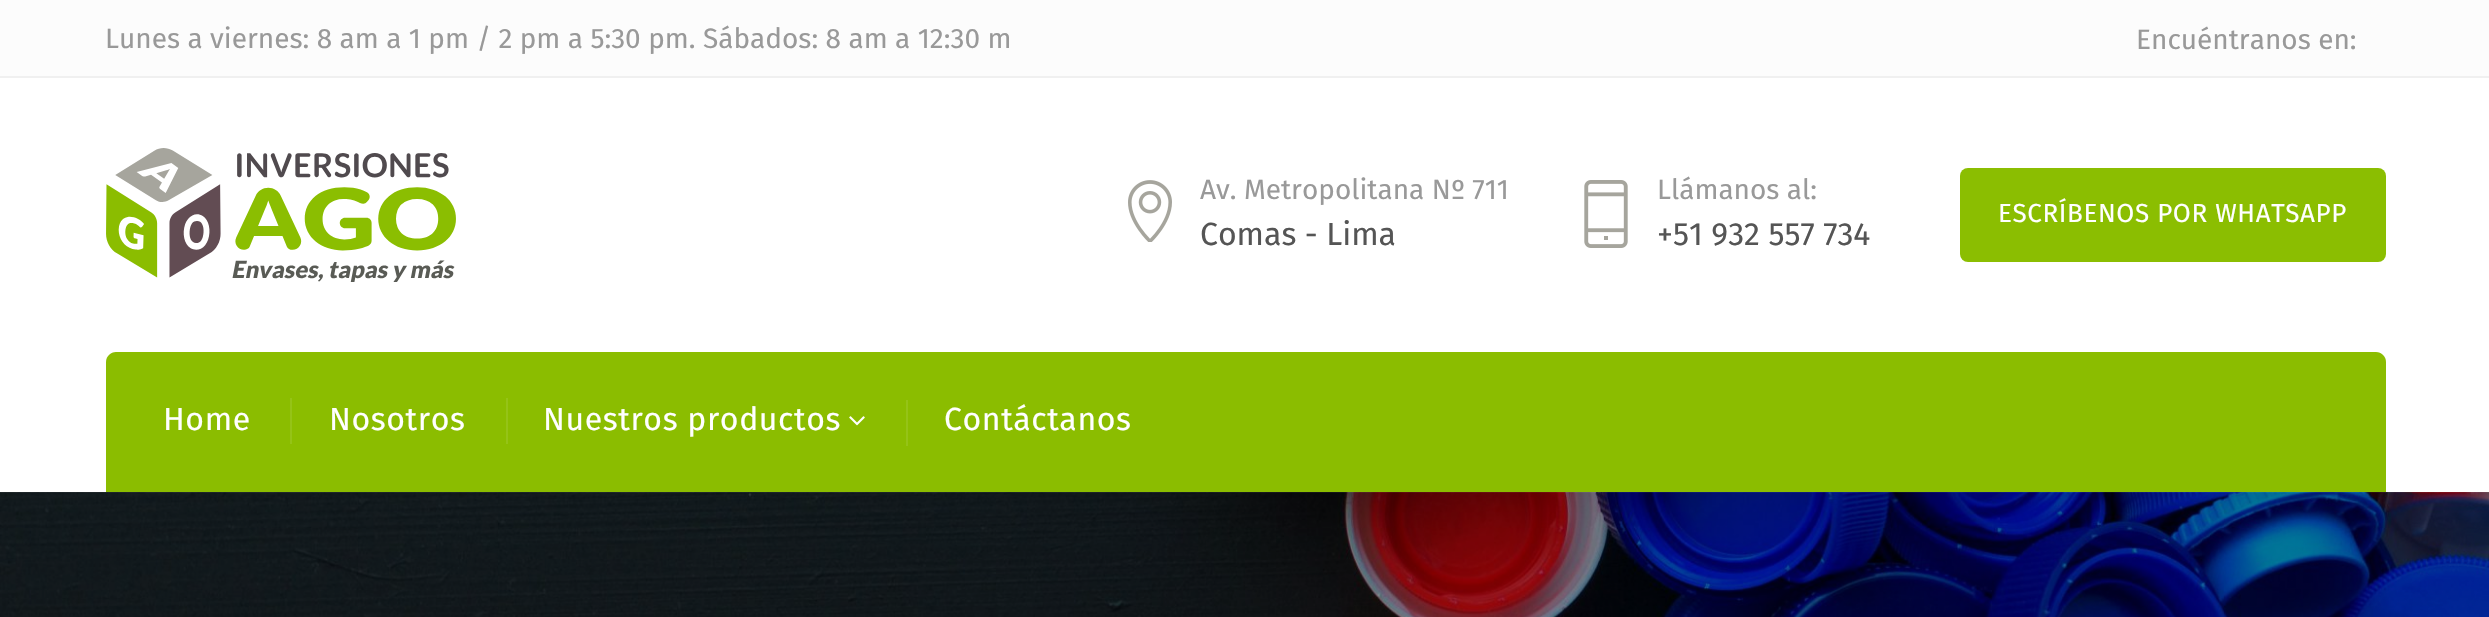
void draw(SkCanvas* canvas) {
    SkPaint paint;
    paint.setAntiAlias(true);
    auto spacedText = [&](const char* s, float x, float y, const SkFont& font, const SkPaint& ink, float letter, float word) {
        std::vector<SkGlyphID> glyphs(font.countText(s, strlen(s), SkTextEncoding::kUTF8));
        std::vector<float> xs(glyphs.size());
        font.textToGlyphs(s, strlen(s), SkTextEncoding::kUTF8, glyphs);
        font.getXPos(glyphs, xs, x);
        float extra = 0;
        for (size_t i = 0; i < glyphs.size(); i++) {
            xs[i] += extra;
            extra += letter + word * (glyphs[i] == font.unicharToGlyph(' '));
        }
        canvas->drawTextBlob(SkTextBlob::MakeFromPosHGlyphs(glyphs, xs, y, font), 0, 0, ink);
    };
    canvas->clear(0xFFFFFFFF);
    paint.setColor(0xFFFCFCFC);
    canvas->drawRect(SkRect::MakeXYWH(0, 0, 2489, 76), paint);
    paint.setColor(0xFFF0F0F0);
    canvas->drawRect(SkRect::MakeXYWH(0, 76, 2489, 2), paint);
    SkFont font1(fontMgr->matchFamilyStyle("Fira Sans", SkFontStyle::Normal()), 28);
    font1.setSubpixel(true);
    paint.setColor(0xFF999999);
    canvas->drawString("Lunes a viernes: 8 am a 1 pm / 2 pm a 5:30 pm. Sábados: 8 am a 12:30 m", 105, 48, font1, paint);
    canvas->drawString("Encuéntranos en:", 2136, 49, font1, paint);
    canvas->drawImageRect(SkImages::DeferredFromEncodedData(SkData::MakeFromFileName("img1.png")), SkRect::MakeXYWH(106, 148, 350, 134), SkSamplingOptions());
    canvas->drawImageRect(SkImages::DeferredFromEncodedData(SkData::MakeFromFileName("img2.png")), SkRect::MakeXYWH(1128, 180, 44, 62), SkSamplingOptions());
    canvas->drawString("Av. Metropolitana Nº 711", 1200, 199, font1, paint);
    SkFont font2(fontMgr->matchFamilyStyle("Fira Sans", SkFontStyle::Normal()), 32);
    font2.setSubpixel(true);
    paint.setColor(0xFF555555);
    canvas->drawString("Comas - Lima", 1200, 245, font2, paint);
    canvas->drawImageRect(SkImages::DeferredFromEncodedData(SkData::MakeFromFileName("img3.png")), SkRect::MakeXYWH(1584, 180, 44, 68), SkSamplingOptions());
    paint.setColor(0xFF999999);
    canvas->drawString("Llámanos al:", 1657, 199, font1, paint);
    paint.setColor(0xFF555555);
    canvas->drawString("+51 932 557 734", 1657, 245, font2, paint);
    paint.setColor(0xFF8BBE01);
    canvas->drawRoundRect(SkRect::MakeXYWH(1960, 168, 426, 94), 8, 8, paint);
    SkFont font3(fontMgr->matchFamilyStyle("Fira Sans", SkFontStyle::Normal()), 26);
    font3.setSubpixel(true);
    paint.setColor(0xFFFFFFFF);
    spacedText("ESCRÍBENOS POR WHATSAPP", 1998, 222, font3, paint, 0.6f, 0);
    paint.setColor(0xFF8BBD00);
    canvas->drawPath(SkPathBuilder().moveTo(116, 352).lineTo(2376, 352).cubicTo(2381.5f, 352, 2386, 356.5f, 2386, 362).lineTo(2386, 492).lineTo(106, 492).lineTo(106, 362).cubicTo(106, 356.5f, 110.5f, 352, 116, 352).close().detach(), paint);
    paint.setColor(0xFFFFFFFF);
    spacedText("Home", 163, 430, font2, paint, 0.6f, 0);
    paint.setColor(0xFF95C317);
    canvas->drawRect(SkRect::MakeXYWH(290, 398, 2, 46), paint);
    paint.setColor(0xFFFFFFFF);
    spacedText("Nosotros", 329, 430, font2, paint, 0.6f, 0);
    paint.setColor(0xFF95C317);
    canvas->drawRect(SkRect::MakeXYWH(506, 398, 2, 46), paint);
    paint.setColor(0xFFFFFFFF);
    spacedText("Nuestros productos", 543, 430, font2, paint, 0.6f, 0);
    canvas->drawImageRect(SkImages::DeferredFromEncodedData(SkData::MakeFromFileName("img4.png")), SkRect::MakeXYWH(849, 416, 16, 10), SkSamplingOptions());
    paint.setColor(0xFF95C317);
    canvas->drawRect(SkRect::MakeXYWH(906, 400, 2, 46), paint);
    paint.setColor(0xFFFFFFFF);
    spacedText("Contáctanos", 944, 430, font2, paint, 0.6f, 0);
    canvas->drawImageRect(SkImages::DeferredFromEncodedData(SkData::MakeFromFileName("img5.png")), SkRect::MakeXYWH(0, 492, 2489, 125), SkSamplingOptions());
}
